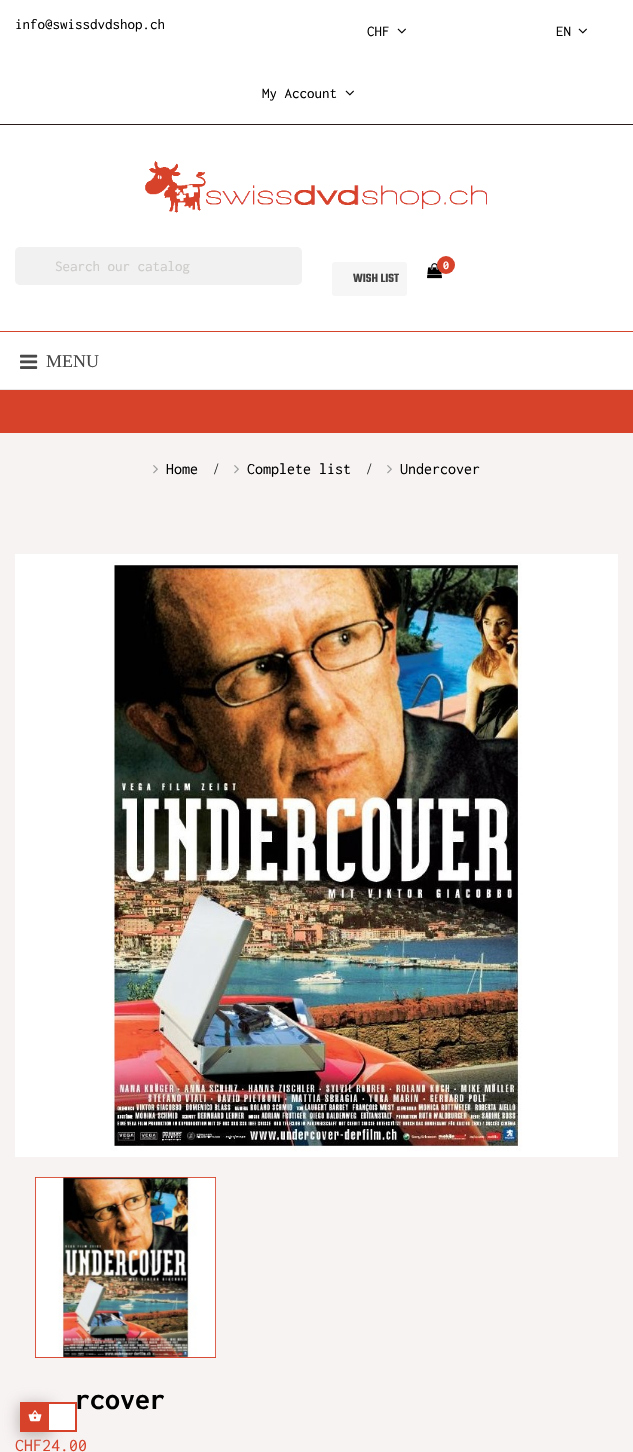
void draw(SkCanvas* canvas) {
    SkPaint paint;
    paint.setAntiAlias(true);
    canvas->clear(0xFFF8F3F3);
    paint.setColor(0xFFFFFFFF);
    canvas->drawRect(SkRect::MakeXYWH(0, 0, 633, 389), paint);
    SkFont font1(fontMgr->matchFamilyStyle("Inconsolata", SkFontStyle::Normal()), 15);
    font1.setSubpixel(true);
    paint.setColor(0xFF000000);
    canvas->drawString("info@swissdvdshop.ch", 15, 29, font1, paint);
    canvas->drawString("CHF", 367, 36, font1, paint);
    canvas->drawImageRect(SkImages::DeferredFromEncodedData(SkData::MakeFromFileName("img1.png")), SkRect::MakeXYWH(397, 28, 9, 6), SkSamplingOptions());
    canvas->drawString("EN", 556, 36, font1, paint);
    canvas->drawImageRect(SkImages::DeferredFromEncodedData(SkData::MakeFromFileName("img1.png")), SkRect::MakeXYWH(578, 28, 9, 6), SkSamplingOptions());
    canvas->drawString("My Account", 262, 98, font1, paint);
    canvas->drawImageRect(SkImages::DeferredFromEncodedData(SkData::MakeFromFileName("img1.png")), SkRect::MakeXYWH(345, 90, 9, 6), SkSamplingOptions());
    paint.setColor(0xFF291B1B);
    canvas->drawRect(SkRect::MakeXYWH(0, 124, 633, 1), paint);
    canvas->drawImageRect(SkImages::DeferredFromEncodedData(SkData::MakeFromFileName("img2.png")), SkRect::MakeXYWH(145, 161, 342, 52), SkSamplingOptions());
    paint.setColor(0xFFF1F1F1);
    canvas->drawRoundRect(SkRect::MakeXYWH(15, 247, 287, 38), 5, 5, paint);
    paint.setColor(0xFFCCCBC9);
    canvas->drawString("Search our catalog", 55, 271, font1, paint);
    canvas->drawImageRect(SkImages::DeferredFromEncodedData(SkData::MakeFromFileName("img3.png")), SkRect::MakeXYWH(427, 263, 15, 16), SkSamplingOptions());
    paint.setColor(0xFFD7422B);
    canvas->drawCircle(446, 265, 9, paint);
    SkFont font2(fontMgr->matchFamilyStyle("Inconsolata", SkFontStyle::Bold()), 12);
    font2.setSubpixel(true);
    paint.setColor(0xFFFFFFFF);
    canvas->drawString("0", 443, 269, font2, paint);
    paint.setColor(0xFFF6F6F6);
    canvas->drawRoundRect(SkRect::MakeXYWH(332, 262, 75, 34), 3, 3, paint);
    SkFont font3(fontMgr->matchFamilyStyle("Teko", SkFontStyle(600, SkFontStyle::kNormal_Width, SkFontStyle::kUpright_Slant)), 13);
    font3.setSubpixel(true);
    paint.setColor(0xFF414141);
    canvas->drawString("WISH LIST", 353, 282, font3, paint);
    paint.setColor(0xFFD7422B);
    canvas->drawRect(SkRect::MakeXYWH(0, 331, 633, 1), paint);
    paint.setColor(0xFFE9E9E9);
    canvas->drawRect(SkRect::MakeXYWH(0, 389, 633, 1), paint);
    canvas->drawImageRect(SkImages::DeferredFromEncodedData(SkData::MakeFromFileName("img4.png")), SkRect::MakeXYWH(20, 354, 18, 15), SkSamplingOptions());
    SkFont font4(fontMgr->matchFamilyStyle("Liberation Serif", SkFontStyle::Normal()), 18);
    font4.setSubpixel(true);
    paint.setColor(0xFF484848);
    canvas->drawString("MENU", 46, 367, font4, paint);
    paint.setColor(0xFFD7422B);
    canvas->drawRect(SkRect::MakeXYWH(0, 390, 633, 43), paint);
    canvas->drawImageRect(SkImages::DeferredFromEncodedData(SkData::MakeFromFileName("img5.png")), SkRect::MakeXYWH(153, 465, 5, 9), SkSamplingOptions());
    SkFont font5(fontMgr->matchFamilyStyle("Inconsolata", SkFontStyle::Normal()), 16);
    font5.setSubpixel(true);
    paint.setColor(0xFF000000);
    canvas->drawString("Home", 166, 474, font5, paint);
    SkFont font6(fontMgr->matchFamilyStyle("Liberation Serif", SkFontStyle::Normal()), 16);
    font6.setSubpixel(true);
    paint.setColor(0xFF272727);
    canvas->drawString("/", 214, 474, font6, paint);
    canvas->drawImageRect(SkImages::DeferredFromEncodedData(SkData::MakeFromFileName("img5.png")), SkRect::MakeXYWH(234, 465, 5, 9), SkSamplingOptions());
    paint.setColor(0xFF000000);
    canvas->drawString("Complete list", 247, 474, font5, paint);
    paint.setColor(0xFF272727);
    canvas->drawString("/", 367, 474, font6, paint);
    canvas->drawImageRect(SkImages::DeferredFromEncodedData(SkData::MakeFromFileName("img5.png")), SkRect::MakeXYWH(387, 465, 5, 9), SkSamplingOptions());
    paint.setColor(0xFF000000);
    canvas->drawString("Undercover", 400, 474, font5, paint);
    paint.setColor(0xFFFFFFFF);
    canvas->drawRect(SkRect::MakeXYWH(15, 554, 603, 603), paint);
    canvas->drawImageRect(SkImages::DeferredFromEncodedData(SkData::MakeFromFileName("img6.png")), SkRect::MakeXYWH(111, 562, 411, 589), SkSamplingOptions());
    paint.setStyle(SkPaint::kStroke_Style);
    paint.setStrokeWidth(1);
    paint.setColor(0xFFD7422B);
    canvas->drawRect(SkRect::MakeXYWH(35.5f, 1177.5f, 180, 180), paint);
    canvas->drawImageRect(SkImages::DeferredFromEncodedData(SkData::MakeFromFileName("img7.png")), SkRect::MakeXYWH(35, 1177, 181, 181), SkSamplingOptions());
    SkFont font7(fontMgr->matchFamilyStyle("Inconsolata", SkFontStyle::Bold()), 30);
    font7.setSubpixel(true);
    paint.setStyle(SkPaint::kFill_Style);
    paint.setColor(0xFF000000);
    canvas->drawString("rcover", 75, 1409, font7, paint);
    SkFont font8(fontMgr->matchFamilyStyle("Inconsolata", SkFontStyle::Normal()), 18);
    font8.setSubpixel(true);
    paint.setColor(0xFFD7422B);
    canvas->drawString("CHF24.00", 15, 1451, font8, paint);
    paint.setColor(0x9E8E8982);
    paint.setMaskFilter(SkMaskFilter::MakeBlur(kNormal_SkBlurStyle, 7.5f));
    canvas->drawRect(SkRect::MakeXYWH(19, 1404, 32, 32), paint);
    paint.setMaskFilter(nullptr);
    paint.setColor(0xFFD7422B);
    canvas->drawRect(SkRect::MakeXYWH(20, 1402, 27, 30), paint);
    canvas->drawImageRect(SkImages::DeferredFromEncodedData(SkData::MakeFromFileName("img8.png")), SkRect::MakeXYWH(28, 1410, 14, 12), SkSamplingOptions());
    paint.setColor(0xFFFFFFFF);
    canvas->drawRect(SkRect::MakeXYWH(48, 1403, 28, 28), paint);
    paint.setStyle(SkPaint::kStroke_Style);
    paint.setStrokeWidth(2);
    paint.setColor(0xFFD7422B);
    canvas->drawRect(SkRect::MakeXYWH(48, 1403, 28, 28), paint);
}
